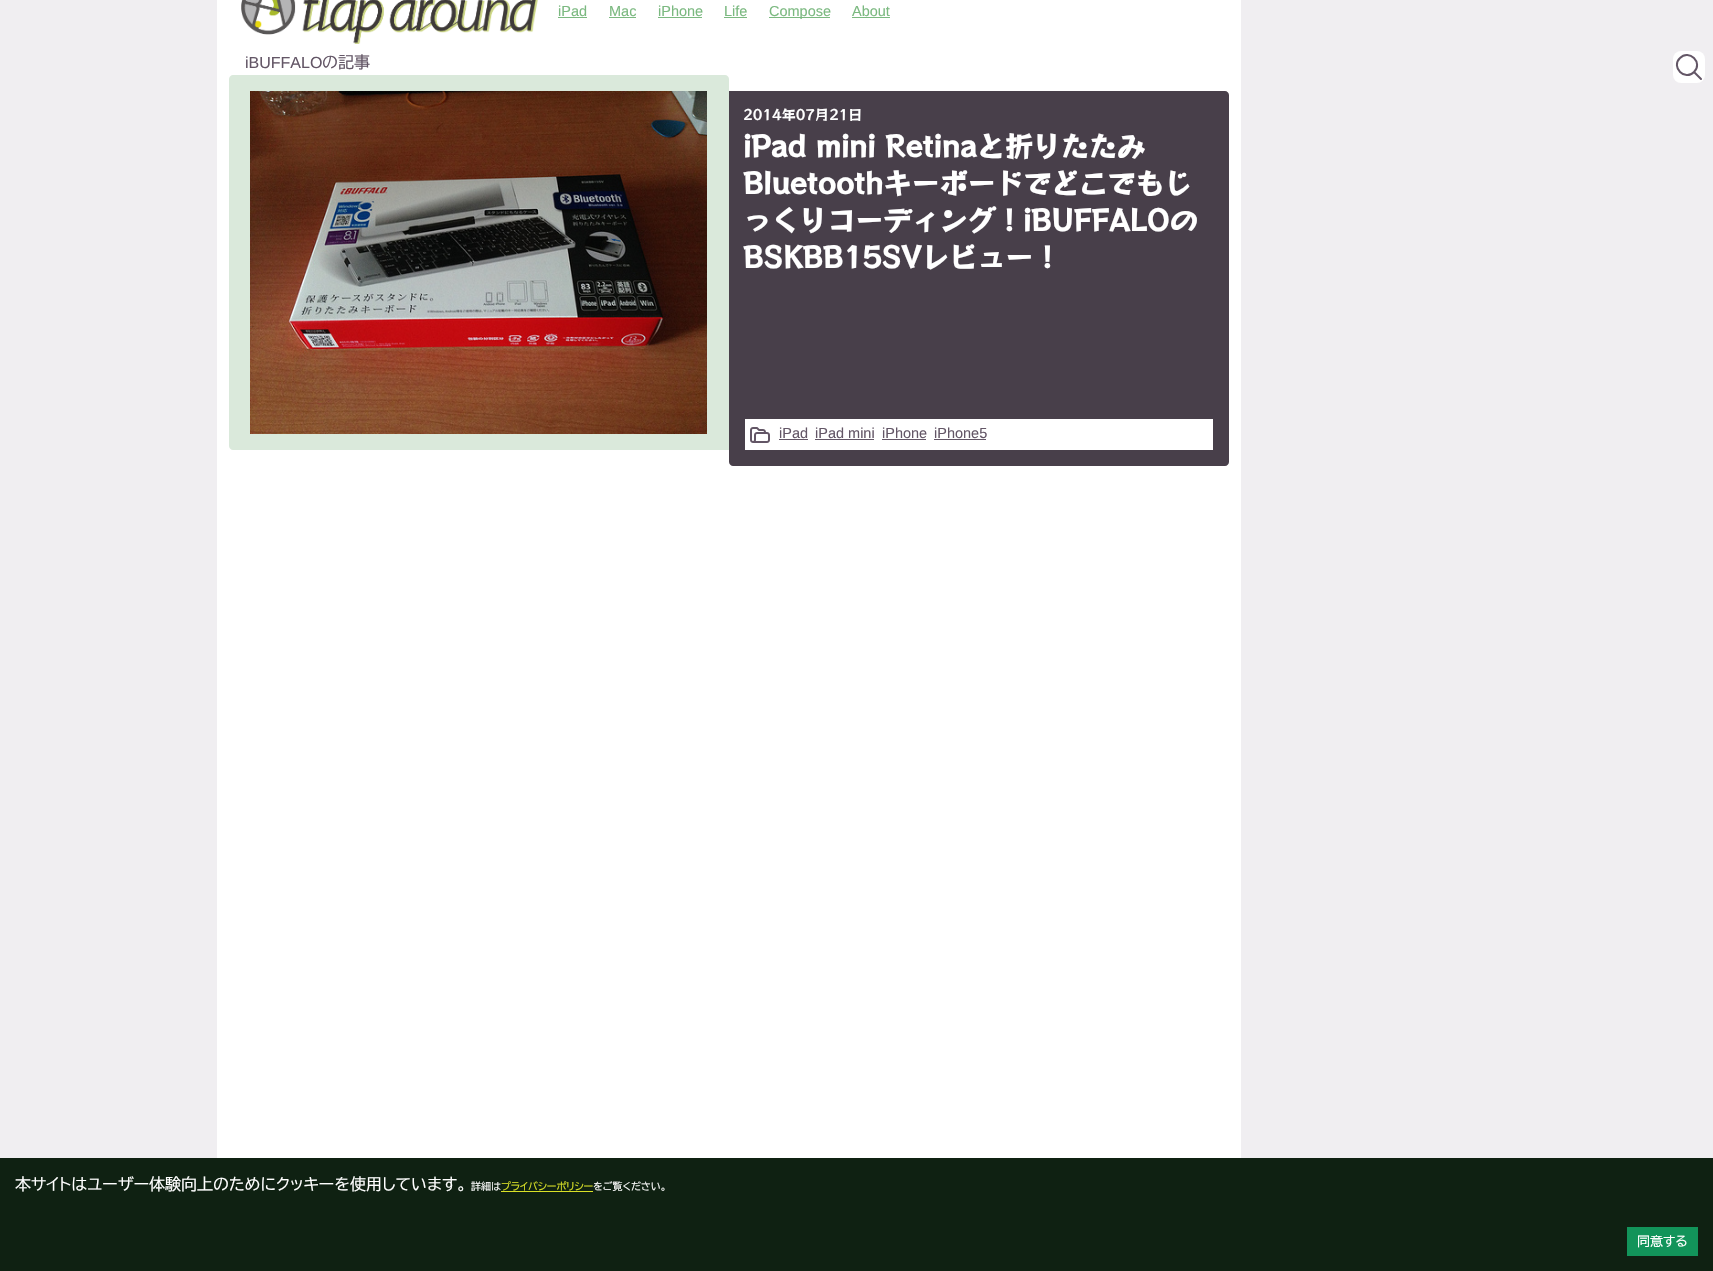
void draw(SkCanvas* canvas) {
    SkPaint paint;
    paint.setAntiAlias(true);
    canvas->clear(0xFFF0EEF1);
    paint.setColor(0xFFFFFFFF);
    canvas->drawRect(SkRect::MakeXYWH(217, 0, 1024, 1158), paint);
    canvas->drawImageRect(SkImages::DeferredFromEncodedData(SkData::MakeFromFileName("img1.png")), SkRect::MakeXYWH(241, 0, 297, 44), SkSamplingOptions());
    SkFont font1(fontMgr->matchFamilyStyle("Liberation Sans", SkFontStyle::Normal()), 14.5f);
    font1.setSubpixel(true);
    paint.setColor(0xFF7BB980);
    canvas->drawString("iPad", 558, 16, font1, paint);
    canvas->drawRect(SkRect::MakeXYWH(558, 17, 29, 1), paint);
    canvas->drawString("Mac", 609, 16, font1, paint);
    canvas->drawRect(SkRect::MakeXYWH(609, 17, 27, 1), paint);
    canvas->drawString("iPhone", 658, 16, font1, paint);
    canvas->drawRect(SkRect::MakeXYWH(658, 17, 44, 1), paint);
    canvas->drawString("Life", 724, 16, font1, paint);
    canvas->drawRect(SkRect::MakeXYWH(724, 17, 23, 1), paint);
    canvas->drawRect(SkRect::MakeXYWH(769, 17, 61, 1), paint);
    canvas->drawString("Compose", 769, 16, font1, paint);
    canvas->drawString("About", 852, 16, font1, paint);
    canvas->drawRect(SkRect::MakeXYWH(852, 17, 38, 1), paint);
    SkFont font2(fontMgr->matchFamilyStyle("Liberation Sans", SkFontStyle::Normal()), 16);
    font2.setSubpixel(true);
    paint.setColor(0xFF635666);
    canvas->drawString("iBUFFALO", 245, 68, font2, paint);
    SkFont font3(fontMgr->matchFamilyStyle("BIZ UDPGothic", SkFontStyle::Normal()), 16);
    font3.setSubpixel(true);
    canvas->drawString("の記事", 322, 68, font3, paint);
    paint.setColor(0xFFDAE9DB);
    canvas->drawPath(SkPathBuilder().moveTo(233, 75).lineTo(725, 75).cubicTo(727, 75, 729, 77, 729, 79).lineTo(729, 450).lineTo(233, 450).cubicTo(231, 450, 229, 448, 229, 446).lineTo(229, 79).cubicTo(229, 77, 231, 75, 233, 75).close().detach(), paint);
    canvas->drawImageRect(SkImages::DeferredFromEncodedData(SkData::MakeFromFileName("img2.png")), SkRect::MakeXYWH(250, 91, 457, 343), SkSamplingOptions());
    paint.setColor(0xFF483F4A);
    canvas->drawPath(SkPathBuilder().moveTo(729, 91).lineTo(1225, 91).cubicTo(1227, 91, 1229, 93, 1229, 95).lineTo(1229, 462).cubicTo(1229, 464, 1227, 466, 1225, 466).lineTo(733, 466).cubicTo(731, 466, 729, 464, 729, 462).close().detach(), paint);
    SkFont font4(fontMgr->matchFamilyStyle("RocknRoll One", SkFontStyle::Normal()), 14);
    font4.setSubpixel(true);
    paint.setColor(0xFFFFFFFF);
    canvas->drawString("2014年07月21日", 743, 120, font4, paint);
    SkFont font5(fontMgr->matchFamilyStyle("RocknRoll One", SkFontStyle::Bold()), 28);
    font5.setSubpixel(true);
    canvas->drawString("iPad mini Retinaと折りたたみ", 743, 157, font5, paint);
    canvas->drawString("Bluetoothキーボードでどこでもじ", 743, 194, font5, paint);
    canvas->drawString("っくりコーディング！iBUFFALOの", 743, 231, font5, paint);
    canvas->drawString("BSKBB15SVレビュー！", 743, 268, font5, paint);
    canvas->drawRect(SkRect::MakeXYWH(745, 419, 468, 31), paint);
    canvas->drawImageRect(SkImages::DeferredFromEncodedData(SkData::MakeFromFileName("img3.png")), SkRect::MakeXYWH(750, 427, 20, 16), SkSamplingOptions());
    paint.setColor(0xFF635666);
    canvas->drawString("iPad", 779, 438, font1, paint);
    canvas->drawRect(SkRect::MakeXYWH(779, 439, 29, 1), paint);
    canvas->drawString("iPad mini", 815, 438, font1, paint);
    canvas->drawRect(SkRect::MakeXYWH(815, 439, 59, 1), paint);
    canvas->drawString("iPhone", 882, 438, font1, paint);
    canvas->drawRect(SkRect::MakeXYWH(882, 439, 44, 1), paint);
    canvas->drawString("iPhone5", 934, 438, font1, paint);
    canvas->drawRect(SkRect::MakeXYWH(934, 439, 52, 1), paint);
    paint.setColor(0xFFFFFFFF);
    canvas->drawRoundRect(SkRect::MakeXYWH(1673, 51, 32, 32), 8, 8, paint);
    paint.setStyle(SkPaint::kStroke_Style);
    paint.setStrokeWidth(2);
    paint.setStrokeCap(SkPaint::kRound_Cap);
    paint.setStrokeJoin(SkPaint::kRound_Join);
    paint.setColor(0xFF635666);
    canvas->drawPath(SkPathBuilder().moveTo(1701, 79).lineTo(1694, 72).moveTo(1694, 72).cubicTo(1703.5f, 63, 1689, 48.5f, 1680, 58).cubicTo(1670.5f, 67, 1685, 81.5f, 1694, 72).close().detach(), paint);
    paint.setStyle(SkPaint::kFill_Style);
    paint.setColor(0xFF0F2112);
    canvas->drawRect(SkRect::MakeXYWH(0, 1158, 1713, 113), paint);
    paint.setColor(0xFFFFFFFF);
    canvas->drawString("本サイトはユーザー体験向上のためにクッキーを使用しています。", 15, 1190, font3, paint);
    SkFont font6(fontMgr->matchFamilyStyle("BIZ UDPGothic", SkFontStyle::Normal()), 10);
    font6.setSubpixel(true);
    canvas->drawString("詳細は", 471, 1190, font6, paint);
    paint.setColor(0xFFD9E126);
    canvas->drawRect(SkRect::MakeXYWH(501, 1191, 92, 1), paint);
    canvas->drawString("プライバシーポリシー", 501, 1190, font6, paint);
    paint.setColor(0xFFFFFFFF);
    canvas->drawString("をご覧ください。", 593, 1190, font6, paint);
    paint.setColor(0xFF12945A);
    canvas->drawRect(SkRect::MakeXYWH(1627, 1227, 71, 29), paint);
    SkFont font7(fontMgr->matchFamilyStyle("BIZ UDPGothic", SkFontStyle::Normal()), 13);
    font7.setSubpixel(true);
    paint.setColor(0xFFFFFFFF);
    canvas->drawString("同意する", 1637, 1246, font7, paint);
}
